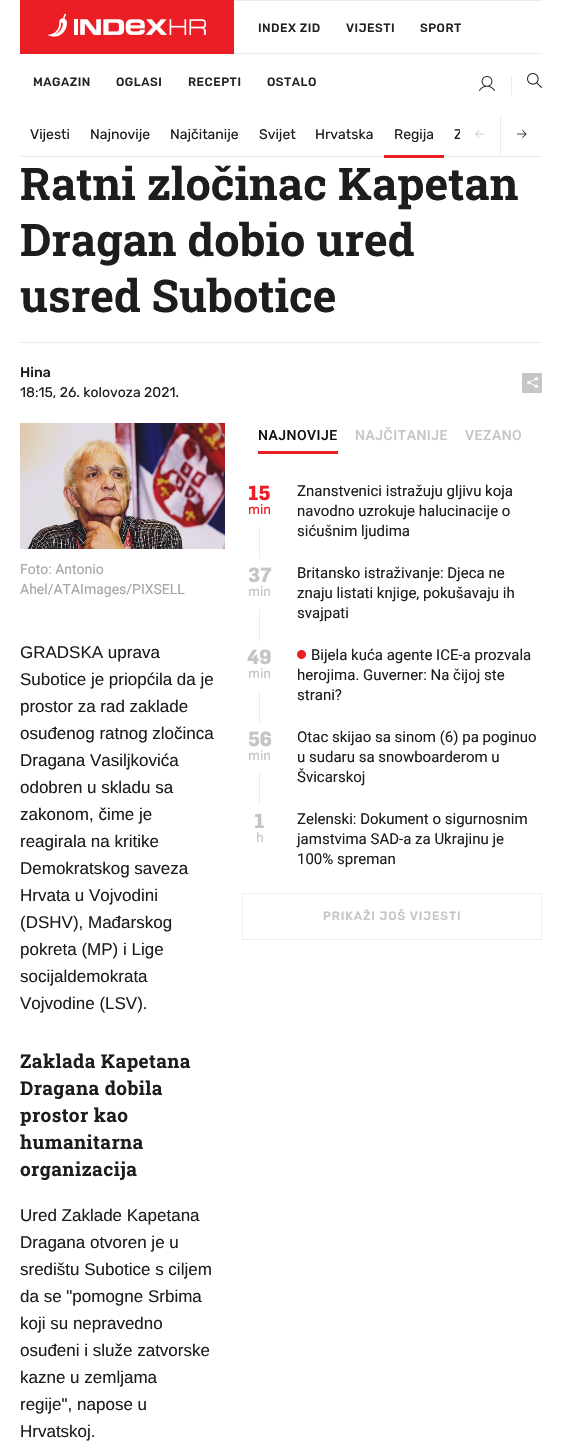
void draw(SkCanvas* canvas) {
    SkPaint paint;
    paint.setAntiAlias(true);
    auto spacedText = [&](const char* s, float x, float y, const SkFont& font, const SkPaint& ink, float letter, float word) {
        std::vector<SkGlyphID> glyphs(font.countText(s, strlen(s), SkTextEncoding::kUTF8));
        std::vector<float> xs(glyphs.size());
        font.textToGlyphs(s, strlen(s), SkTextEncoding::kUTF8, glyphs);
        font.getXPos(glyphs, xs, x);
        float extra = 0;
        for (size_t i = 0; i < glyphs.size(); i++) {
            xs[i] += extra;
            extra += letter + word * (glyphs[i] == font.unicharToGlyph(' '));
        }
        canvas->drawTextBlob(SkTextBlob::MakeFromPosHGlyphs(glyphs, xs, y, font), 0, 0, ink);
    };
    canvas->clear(0xFFFFFFFF);
    paint.setColor(0xFFEB1E25);
    canvas->drawRect(SkRect::MakeXYWH(20, 0, 214, 54), paint);
    canvas->drawImageRect(SkImages::DeferredFromEncodedData(SkData::MakeFromFileName("img1.png")), SkRect::MakeXYWH(47, 13, 159, 24), SkSamplingOptions());
    paint.setColor(0xFFEBEBEB);
    canvas->drawRect(SkRect::MakeXYWH(234, 0, 308, 1), paint);
    canvas->drawRect(SkRect::MakeXYWH(234, 53, 308, 1), paint);
    SkFont font1(fontMgr->matchFamilyStyle("Rubik", SkFontStyle(500, SkFontStyle::kNormal_Width, SkFontStyle::kUpright_Slant)), 12);
    font1.setSubpixel(true);
    paint.setColor(0xFF232323);
    spacedText("INDEX ZID", 258, 32, font1, paint, 0.5f, 0);
    spacedText("VIJESTI", 346, 32, font1, paint, 0.5f, 0);
    spacedText("SPORT", 420, 32, font1, paint, 0.5f, 0);
    spacedText("MAGAZIN", 33, 86, font1, paint, 0.5f, 0);
    spacedText("OGLASI", 116, 86, font1, paint, 0.5f, 0);
    spacedText("RECEPTI", 188, 86, font1, paint, 0.5f, 0);
    spacedText("OSTALO", 267, 86, font1, paint, 0.5f, 0);
    paint.setColor(0xFFEBEBEB);
    canvas->drawRect(SkRect::MakeXYWH(511, 76, 1, 19), paint);
    canvas->drawImageRect(SkImages::DeferredFromEncodedData(SkData::MakeFromFileName("img2.png")), SkRect::MakeXYWH(479, 76, 16, 15), SkSamplingOptions());
    canvas->drawImageRect(SkImages::DeferredFromEncodedData(SkData::MakeFromFileName("img3.png")), SkRect::MakeXYWH(527, 73, 15, 15), SkSamplingOptions());
    canvas->drawRect(SkRect::MakeXYWH(20, 156, 522, 1), paint);
    SkFont font2(fontMgr->matchFamilyStyle("Rubik", SkFontStyle::Normal()), 14);
    font2.setSubpixel(true);
    paint.setColor(0xFF1D1D1D);
    canvas->drawString("Vijesti", 30, 139, font2, paint);
    canvas->drawString("Najnovije", 90, 139, font2, paint);
    canvas->drawString("Najčitanije", 170, 139, font2, paint);
    canvas->drawString("Svijet", 259, 139, font2, paint);
    canvas->drawString("Hrvatska", 315, 139, font2, paint);
    paint.setColor(0xFFEB1E25);
    canvas->drawRect(SkRect::MakeXYWH(384, 155, 60, 3), paint);
    paint.setColor(0xFF1D1D1D);
    canvas->drawString("Regija", 394, 139, font2, paint);
    canvas->drawString("Z", 454, 139, font2, paint);
    paint.setColor(0xFFFFFFFF);
    canvas->drawRect(SkRect::MakeXYWH(460, 129, 2, 10), paint);
    paint.setColor(0xFFEBEBEB);
    canvas->drawRect(SkRect::MakeXYWH(500, 115, 1, 41), paint);
    canvas->drawImageRect(SkImages::DeferredFromEncodedData(SkData::MakeFromFileName("img4.png")), SkRect::MakeXYWH(475, 130, 10, 8), SkSamplingOptions());
    canvas->drawImageRect(SkImages::DeferredFromEncodedData(SkData::MakeFromFileName("img5.png")), SkRect::MakeXYWH(517, 130, 10, 8), SkSamplingOptions());
    SkFont font3(fontMgr->matchFamilyStyle("Roboto Slab", SkFontStyle::Bold()), 45);
    font3.setSubpixel(true);
    paint.setColor(0xFF1D1D1D);
    canvas->drawString("Ratni zločinac Kapetan", 20, 200, font3, paint);
    canvas->drawString("Dragan dobio ured", 20, 256, font3, paint);
    canvas->drawString("usred Subotice", 20, 312, font3, paint);
    paint.setColor(0xFFEBEBEB);
    canvas->drawRect(SkRect::MakeXYWH(20, 342, 522, 1), paint);
    SkFont font4(fontMgr->matchFamilyStyle("Rubik", SkFontStyle(500, SkFontStyle::kNormal_Width, SkFontStyle::kUpright_Slant)), 14);
    font4.setSubpixel(true);
    paint.setColor(0xFF1D1D1D);
    canvas->drawString("Hina", 20, 377, font4, paint);
    canvas->drawString("18:15, 26. kolovoza 2021.", 20, 397, font2, paint);
    paint.setColor(0xFFC6C6C6);
    canvas->drawRect(SkRect::MakeXYWH(522, 373, 20, 20), paint);
    canvas->drawImageRect(SkImages::DeferredFromEncodedData(SkData::MakeFromFileName("img6.png")), SkRect::MakeXYWH(527, 377, 11, 11), SkSamplingOptions());
    canvas->drawImageRect(SkImages::DeferredFromEncodedData(SkData::MakeFromFileName("img7.png")), SkRect::MakeXYWH(20, 423, 205, 126), SkSamplingOptions());
    SkFont font5(fontMgr->matchFamilyStyle("Roboto", SkFontStyle::Normal()), 14);
    font5.setSubpixel(true);
    paint.setColor(0xFFA5A5A5);
    canvas->drawString("Foto: Antonio", 20, 574, font5, paint);
    canvas->drawString("Ahel/ATAImages/PIXSELL", 20, 594, font5, paint);
    SkFont font6(fontMgr->matchFamilyStyle("Liberation Sans", SkFontStyle::Normal()), 17);
    font6.setSubpixel(true);
    paint.setColor(0xFF1D1D1D);
    canvas->drawString("GRADSKA uprava", 20, 658, font6, paint);
    canvas->drawString("Subotice je priopćila da je", 20, 685, font6, paint);
    canvas->drawString("prostor za rad zaklade", 20, 712, font6, paint);
    canvas->drawString("osuđenog ratnog zločinca", 20, 739, font6, paint);
    canvas->drawString("Dragana Vasiljkovića", 20, 766, font6, paint);
    canvas->drawString("odobren u skladu sa", 20, 793, font6, paint);
    canvas->drawString("zakonom, čime je", 20, 820, font6, paint);
    canvas->drawString("reagirala na kritike", 20, 847, font6, paint);
    canvas->drawString("Demokratskog saveza", 20, 874, font6, paint);
    canvas->drawString("Hrvata u Vojvodini", 20, 901, font6, paint);
    canvas->drawString("(DSHV), Mađarskog", 20, 928, font6, paint);
    canvas->drawString("pokreta (MP) i Lige", 20, 955, font6, paint);
    canvas->drawString("socijaldemokrata", 20, 982, font6, paint);
    canvas->drawString("Vojvodine (LSV).", 20, 1009, font6, paint);
    SkFont font7(fontMgr->matchFamilyStyle("Roboto Slab", SkFontStyle::Bold()), 19);
    font7.setSubpixel(true);
    spacedText("Zaklada Kapetana", 20, 1068, font7, paint, 0.4f, 0);
    spacedText("Dragana dobila", 20, 1095, font7, paint, 0.4f, 0);
    spacedText("prostor kao", 20, 1122, font7, paint, 0.4f, 0);
    spacedText("humanitarna", 20, 1149, font7, paint, 0.4f, 0);
    spacedText("organizacija", 20, 1176, font7, paint, 0.4f, 0);
    canvas->drawString("Ured Zaklade Kapetana", 20, 1221, font6, paint);
    canvas->drawString("Dragana otvoren je u", 20, 1248, font6, paint);
    canvas->drawString("središtu Subotice s ciljem", 20, 1275, font6, paint);
    canvas->drawString("da se \"pomogne Srbima", 20, 1302, font6, paint);
    canvas->drawString("koji su nepravedno", 20, 1329, font6, paint);
    canvas->drawString("osuđeni i služe zatvorske", 20, 1356, font6, paint);
    canvas->drawString("kazne u zemljama", 20, 1383, font6, paint);
    canvas->drawString("regije\", napose u", 20, 1410, font6, paint);
    canvas->drawString("Hrvatskoj.", 20, 1437, font6, paint);
    SkFont font8(fontMgr->matchFamilyStyle("Roboto", SkFontStyle(500, SkFontStyle::kNormal_Width, SkFontStyle::kUpright_Slant)), 14);
    font8.setSubpixel(true);
    paint.setColor(0xFF100F14);
    spacedText("NAJNOVIJE", 258, 440, font8, paint, 0.5f, 0);
    paint.setColor(0xFFC5C5C5);
    spacedText("NAJČITANIJE", 355, 440, font8, paint, 0.5f, 0);
    spacedText("VEZANO", 465, 440, font8, paint, 0.5f, 0);
    paint.setColor(0xFFEB1E25);
    canvas->drawRect(SkRect::MakeXYWH(258, 451, 80, 3), paint);
    SkFont font9(fontMgr->matchFamilyStyle("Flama", SkFontStyle::Bold()), 20);
    font9.setSubpixel(true);
    canvas->drawString("15", 248, 500, font9, paint);
    SkFont font10(fontMgr->matchFamilyStyle("Flama", SkFontStyle(500, SkFontStyle::kNormal_Width, SkFontStyle::kUpright_Slant)), 14);
    font10.setSubpixel(true);
    canvas->drawString("min", 248, 514, font10, paint);
    SkFont font11(fontMgr->matchFamilyStyle("Roboto", SkFontStyle::Normal()), 15);
    font11.setSubpixel(true);
    paint.setColor(0xFF1D1D1D);
    canvas->drawString("Znanstvenici istražuju gljivu koja", 297, 496, font11, paint);
    canvas->drawString("navodno uzrokuje halucinacije o", 297, 516, font11, paint);
    canvas->drawString("sićušnim ljudima", 297, 536, font11, paint);
    paint.setColor(0xFFEBEBEB);
    canvas->drawRect(SkRect::MakeXYWH(259, 527, 1, 32), paint);
    paint.setColor(0xFFC5C5C5);
    canvas->drawString("37", 248, 582, font9, paint);
    canvas->drawString("min", 248, 596, font10, paint);
    paint.setColor(0xFF1D1D1D);
    canvas->drawString("Britansko istraživanje: Djeca ne", 297, 578, font11, paint);
    canvas->drawString("znaju listati knjige, pokušavaju ih", 297, 598, font11, paint);
    canvas->drawString("svajpati", 297, 618, font11, paint);
    paint.setColor(0xFFEBEBEB);
    canvas->drawRect(SkRect::MakeXYWH(259, 609, 1, 32), paint);
    paint.setColor(0xFFC5C5C5);
    canvas->drawString("49", 247, 664, font9, paint);
    canvas->drawString("min", 248, 678, font10, paint);
    canvas->drawImageRect(SkImages::DeferredFromEncodedData(SkData::MakeFromFileName("img8.png")), SkRect::MakeXYWH(297, 650, 9, 9), SkSamplingOptions());
    paint.setColor(0xFF1D1D1D);
    canvas->drawString("Bijela kuća agente ICE-a prozvala", 311, 660, font11, paint);
    canvas->drawString("herojima. Guverner: Na čijoj ste", 297, 680, font11, paint);
    canvas->drawString("strani?", 297, 700, font11, paint);
    paint.setColor(0xFFEBEBEB);
    canvas->drawRect(SkRect::MakeXYWH(259, 691, 1, 32), paint);
    paint.setColor(0xFFC5C5C5);
    canvas->drawString("56", 248, 746, font9, paint);
    canvas->drawString("min", 248, 760, font10, paint);
    paint.setColor(0xFF1D1D1D);
    canvas->drawString("Otac skijao sa sinom (6) pa poginuo", 297, 742, font11, paint);
    canvas->drawString("u sudaru sa snowboarderom u", 297, 762, font11, paint);
    canvas->drawString("Švicarskoj", 297, 782, font11, paint);
    paint.setColor(0xFFEBEBEB);
    canvas->drawRect(SkRect::MakeXYWH(259, 773, 1, 32), paint);
    paint.setColor(0xFFC5C5C5);
    canvas->drawString("1", 254, 828, font9, paint);
    canvas->drawString("h", 256, 842, font10, paint);
    paint.setColor(0xFF1D1D1D);
    canvas->drawString("Zelenski: Dokument o sigurnosnim", 297, 824, font11, paint);
    canvas->drawString("jamstvima SAD-a za Ukrajinu je", 297, 844, font11, paint);
    canvas->drawString("100% spreman", 297, 864, font11, paint);
    paint.setStyle(SkPaint::kStroke_Style);
    paint.setStrokeWidth(1);
    paint.setColor(0xFFEFEFEF);
    canvas->drawRect(SkRect::MakeXYWH(242.5f, 893.5f, 299, 46), paint);
    paint.setStyle(SkPaint::kFill_Style);
    paint.setColor(0xFFC5C5C5);
    spacedText("PRIKAŽI JOŠ VIJESTI", 323, 920, font1, paint, 0.9f, 0);
}
